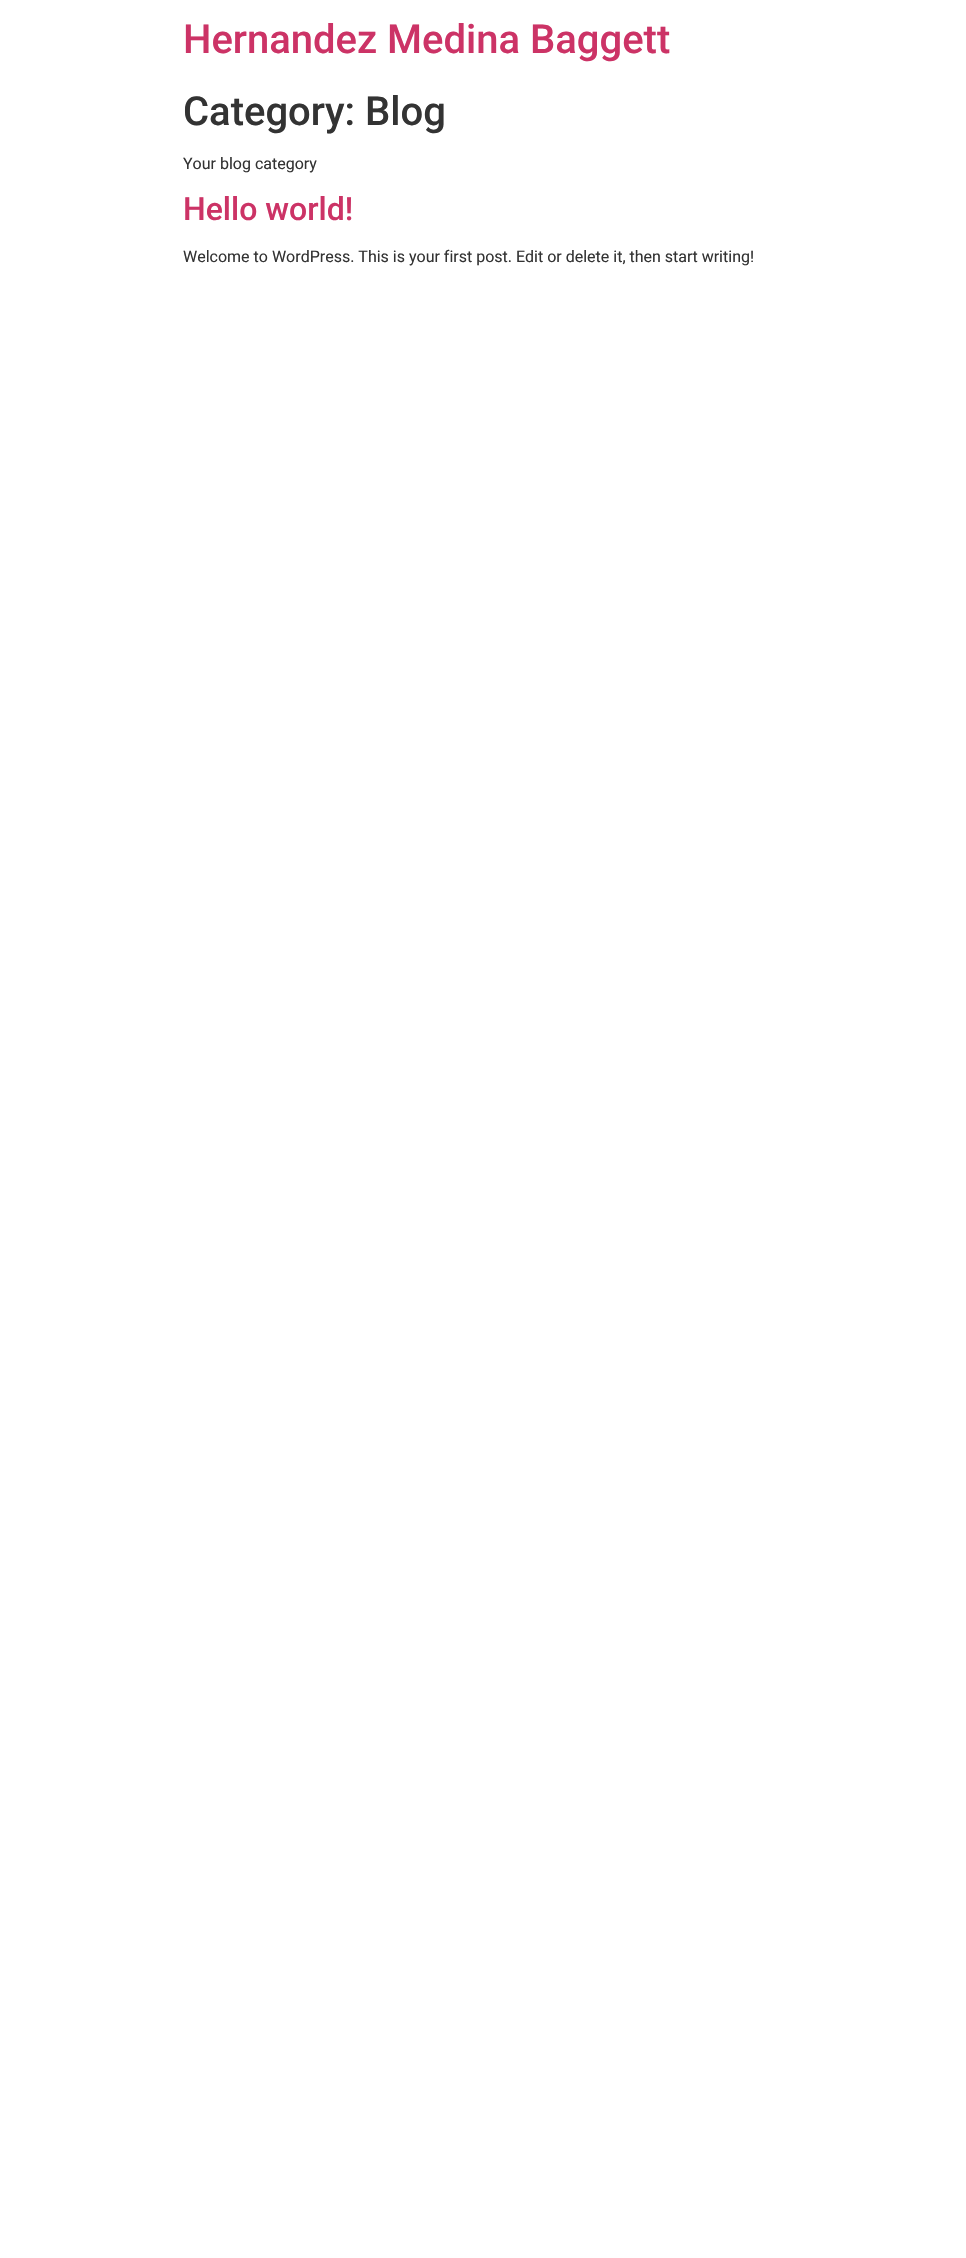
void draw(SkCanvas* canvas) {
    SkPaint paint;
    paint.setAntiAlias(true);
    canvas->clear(0xFFFFFFFF);
    SkFont font1(fontMgr->matchFamilyStyle("Roboto", SkFontStyle(500, SkFontStyle::kNormal_Width, SkFontStyle::kUpright_Slant)), 40);
    font1.setSubpixel(true);
    paint.setColor(0xFFCC3366);
    canvas->drawString("Hernandez Medina Baggett", 183, 53, font1, paint);
    paint.setColor(0xFF333333);
    canvas->drawString("Category: Blog", 183, 125, font1, paint);
    SkFont font2(fontMgr->matchFamilyStyle("Roboto", SkFontStyle::Normal()), 16);
    font2.setSubpixel(true);
    canvas->drawString("Your blog category", 183, 169, font2, paint);
    SkFont font3(fontMgr->matchFamilyStyle("Roboto", SkFontStyle(500, SkFontStyle::kNormal_Width, SkFontStyle::kUpright_Slant)), 32);
    font3.setSubpixel(true);
    paint.setColor(0xFFCC3366);
    canvas->drawString("Hello world!", 183, 220, font3, paint);
    paint.setColor(0xFF333333);
    canvas->drawString("Welcome to WordPress. This is your first post. Edit or delete it, then start writing!", 183, 262, font2, paint);
}
